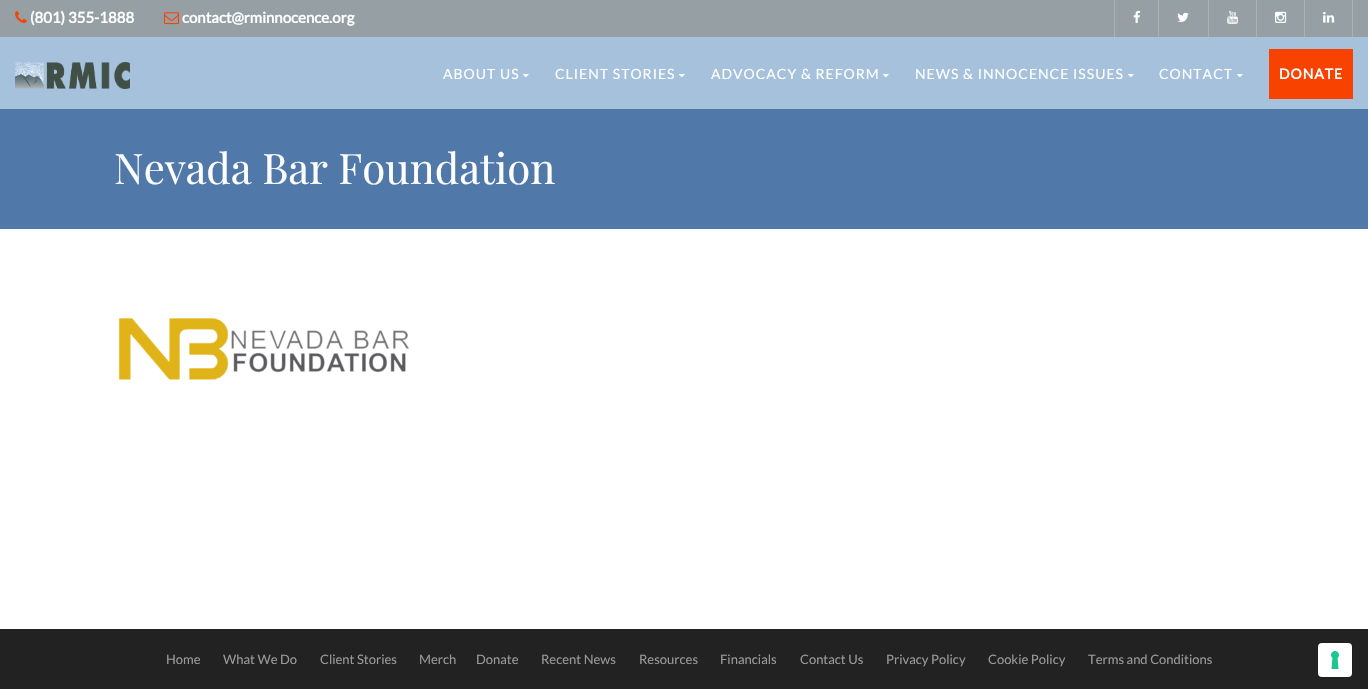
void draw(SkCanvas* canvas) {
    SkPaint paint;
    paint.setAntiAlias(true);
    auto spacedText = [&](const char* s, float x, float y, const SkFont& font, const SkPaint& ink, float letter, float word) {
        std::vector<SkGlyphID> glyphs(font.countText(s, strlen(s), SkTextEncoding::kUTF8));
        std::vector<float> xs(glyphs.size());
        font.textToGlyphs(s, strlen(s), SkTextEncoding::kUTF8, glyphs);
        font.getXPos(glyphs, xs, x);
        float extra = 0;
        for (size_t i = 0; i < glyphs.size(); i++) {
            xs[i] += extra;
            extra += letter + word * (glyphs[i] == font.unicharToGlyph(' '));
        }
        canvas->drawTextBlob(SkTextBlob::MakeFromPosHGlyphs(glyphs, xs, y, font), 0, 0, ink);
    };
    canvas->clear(0xFFFFFFFF);
    paint.setColor(0xFF959FA4);
    canvas->drawRect(SkRect::MakeXYWH(0, 0, 1368, 37), paint);
    canvas->drawImageRect(SkImages::DeferredFromEncodedData(SkData::MakeFromFileName("img1.png")), SkRect::MakeXYWH(15, 11, 12, 12), SkSamplingOptions());
    SkFont font1(fontMgr->matchFamilyStyle("Lato", SkFontStyle::Bold()), 15);
    font1.setSubpixel(true);
    paint.setColor(0xFFFFFFFF);
    canvas->drawString("(801) 355-1888", 30, 23, font1, paint);
    canvas->drawImageRect(SkImages::DeferredFromEncodedData(SkData::MakeFromFileName("img2.png")), SkRect::MakeXYWH(164, 12, 15, 13), SkSamplingOptions());
    canvas->drawString("contact@rminnocence.org", 182, 23, font1, paint);
    paint.setColor(0xFFAAB2B6);
    canvas->drawRect(SkRect::MakeXYWH(1114, 0, 1, 37), paint);
    canvas->drawRect(SkRect::MakeXYWH(1158, 0, 1, 37), paint);
    canvas->drawImageRect(SkImages::DeferredFromEncodedData(SkData::MakeFromFileName("img3.png")), SkRect::MakeXYWH(1133, 10, 7, 13), SkSamplingOptions());
    canvas->drawRect(SkRect::MakeXYWH(1208, 0, 1, 37), paint);
    canvas->drawImageRect(SkImages::DeferredFromEncodedData(SkData::MakeFromFileName("img4.png")), SkRect::MakeXYWH(1177, 12, 12, 10), SkSamplingOptions());
    canvas->drawRect(SkRect::MakeXYWH(1256, 0, 1, 37), paint);
    canvas->drawImageRect(SkImages::DeferredFromEncodedData(SkData::MakeFromFileName("img5.png")), SkRect::MakeXYWH(1227, 10, 11, 14), SkSamplingOptions());
    canvas->drawRect(SkRect::MakeXYWH(1304, 0, 1, 37), paint);
    canvas->drawImageRect(SkImages::DeferredFromEncodedData(SkData::MakeFromFileName("img6.png")), SkRect::MakeXYWH(1275, 11, 12, 12), SkSamplingOptions());
    canvas->drawRect(SkRect::MakeXYWH(1352, 0, 1, 37), paint);
    canvas->drawImageRect(SkImages::DeferredFromEncodedData(SkData::MakeFromFileName("img7.png")), SkRect::MakeXYWH(1323, 12, 12, 11), SkSamplingOptions());
    paint.setColor(0xFFA6C1DC);
    canvas->drawRect(SkRect::MakeXYWH(0, 37, 1368, 72), paint);
    canvas->drawImageRect(SkImages::DeferredFromEncodedData(SkData::MakeFromFileName("img8.png")), SkRect::MakeXYWH(15, 62, 115, 27), SkSamplingOptions());
    SkFont font2(fontMgr->matchFamilyStyle("Lato", SkFontStyle::Normal()), 14);
    font2.setSubpixel(true);
    paint.setColor(0xFFFFFFFF);
    spacedText("ABOUT US", 443, 79, font2, paint, 1, 0);
    canvas->drawImageRect(SkImages::DeferredFromEncodedData(SkData::MakeFromFileName("img9.png")), SkRect::MakeXYWH(523, 74, 6, 4), SkSamplingOptions());
    spacedText("CLIENT STORIES", 555, 79, font2, paint, 1, 0);
    canvas->drawImageRect(SkImages::DeferredFromEncodedData(SkData::MakeFromFileName("img9.png")), SkRect::MakeXYWH(679, 74, 6, 4), SkSamplingOptions());
    spacedText("ADVOCACY & REFORM", 711, 79, font2, paint, 1, 0);
    canvas->drawImageRect(SkImages::DeferredFromEncodedData(SkData::MakeFromFileName("img9.png")), SkRect::MakeXYWH(883, 74, 6, 4), SkSamplingOptions());
    spacedText("NEWS & INNOCENCE ISSUES", 915, 79, font2, paint, 1, 0);
    canvas->drawImageRect(SkImages::DeferredFromEncodedData(SkData::MakeFromFileName("img9.png")), SkRect::MakeXYWH(1128, 74, 6, 4), SkSamplingOptions());
    spacedText("CONTACT", 1159, 79, font2, paint, 1, 0);
    canvas->drawImageRect(SkImages::DeferredFromEncodedData(SkData::MakeFromFileName("img9.png")), SkRect::MakeXYWH(1237, 74, 6, 4), SkSamplingOptions());
    paint.setColor(0xFFF84200);
    canvas->drawRect(SkRect::MakeXYWH(1269, 49, 84, 50), paint);
    SkFont font3(fontMgr->matchFamilyStyle("Lato", SkFontStyle::Bold()), 14);
    font3.setSubpixel(true);
    paint.setColor(0xFFFFFFFF);
    spacedText("DONATE", 1279, 79, font3, paint, 1, 0);
    paint.setColor(0xFF5079AA);
    canvas->drawRect(SkRect::MakeXYWH(0, 109, 1368, 120), paint);
    SkFont font4(fontMgr->matchFamilyStyle("Playfair Display", SkFontStyle::Normal()), 42);
    font4.setSubpixel(true);
    paint.setColor(0xFFFFFFFF);
    canvas->drawString("Nevada Bar Foundation", 114, 184, font4, paint);
    canvas->drawImageRect(SkImages::DeferredFromEncodedData(SkData::MakeFromFileName("img10.png")), SkRect::MakeXYWH(118, 317, 292, 63), SkSamplingOptions());
    paint.setColor(0xFF222222);
    canvas->drawRect(SkRect::MakeXYWH(0, 629, 1368, 60), paint);
    SkFont font5(fontMgr->matchFamilyStyle("Lato", SkFontStyle::Normal()), 13);
    font5.setSubpixel(true);
    paint.setColor(0xFF999999);
    canvas->drawString("Home", 166, 664, font5, paint);
    canvas->drawString("What We Do", 223, 664, font5, paint);
    canvas->drawString("Client Stories", 320, 664, font5, paint);
    canvas->drawString("Merch", 419, 664, font5, paint);
    canvas->drawString("Donate", 476, 664, font5, paint);
    canvas->drawString("Recent News", 541, 664, font5, paint);
    canvas->drawString("Resources", 639, 664, font5, paint);
    canvas->drawString("Financials", 720, 664, font5, paint);
    canvas->drawString("Contact Us", 800, 664, font5, paint);
    canvas->drawString("Privacy Policy", 886, 664, font5, paint);
    canvas->drawString("Cookie Policy", 988, 664, font5, paint);
    canvas->drawString("Terms and Conditions", 1088, 664, font5, paint);
    paint.setStyle(SkPaint::kStroke_Style);
    paint.setStrokeWidth(1);
    paint.setColor(0xFF1D1D1D);
    canvas->drawRoundRect(SkRect::MakeXYWH(1317.5f, 642.5f, 35, 35), 4.5f, 4.5f, paint);
    paint.setStyle(SkPaint::kFill_Style);
    paint.setColor(0xFFFFFFFF);
    canvas->drawRoundRect(SkRect::MakeXYWH(1318, 643, 34, 34), 4, 4, paint);
    canvas->drawImageRect(SkImages::DeferredFromEncodedData(SkData::MakeFromFileName("img11.png")), SkRect::MakeXYWH(1331, 651, 8, 18), SkSamplingOptions());
}
